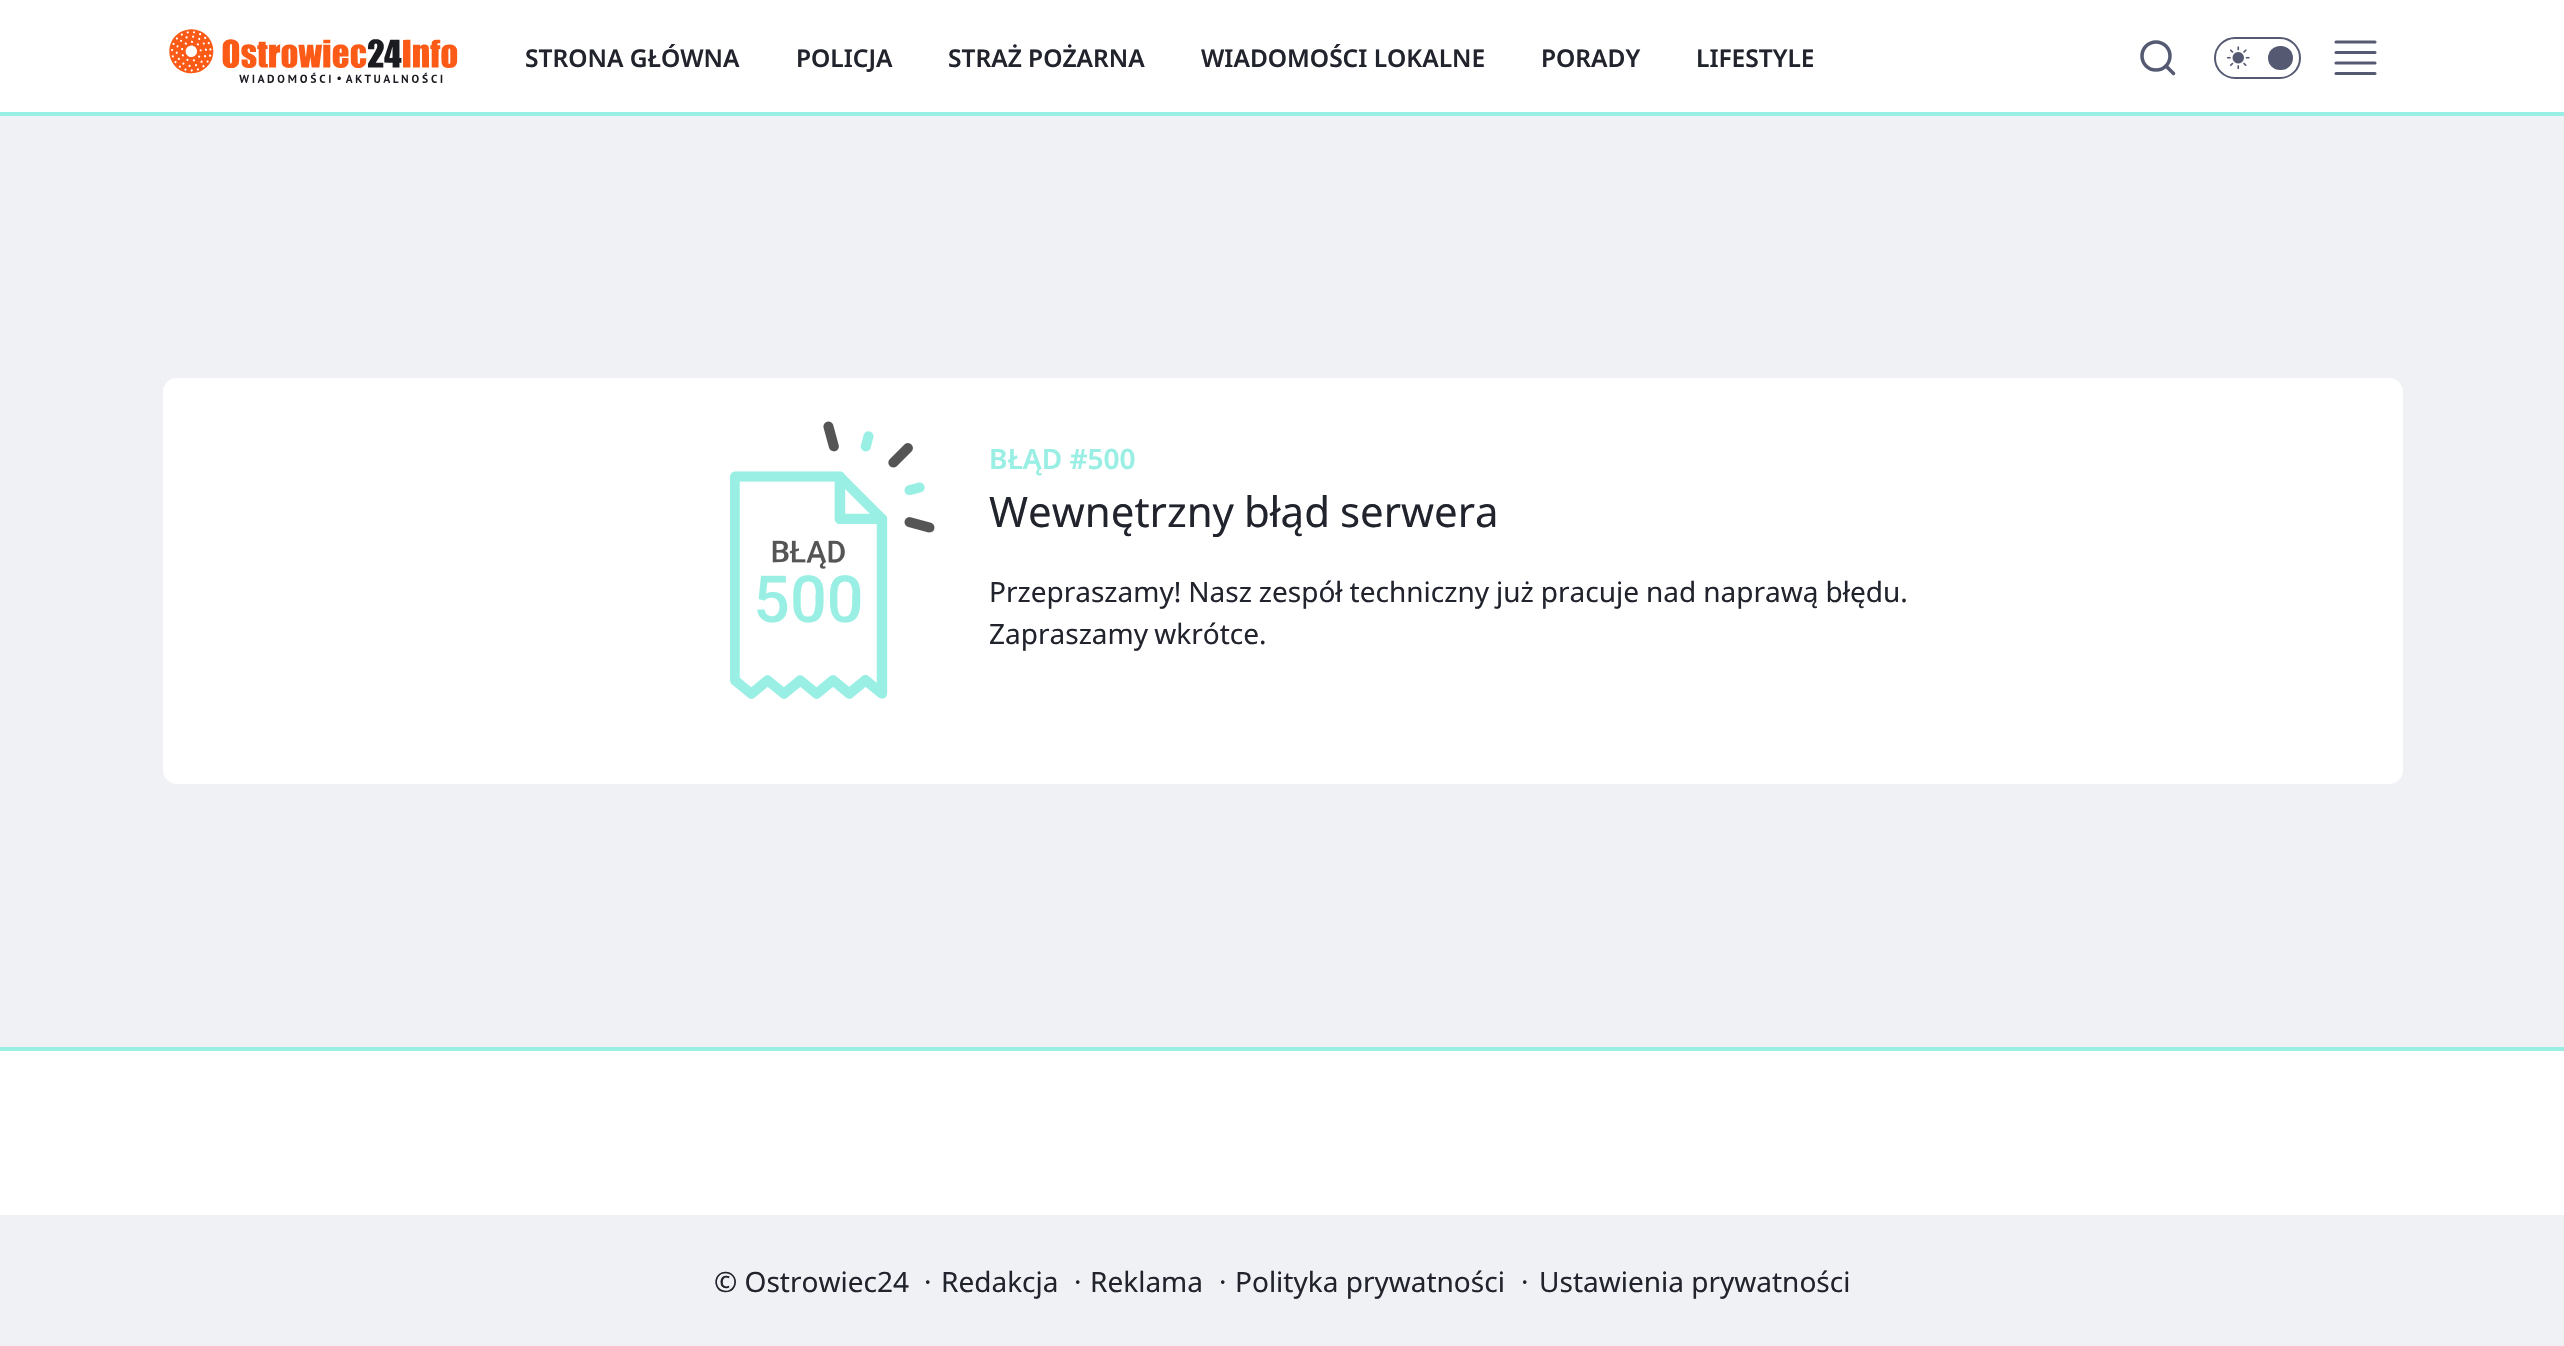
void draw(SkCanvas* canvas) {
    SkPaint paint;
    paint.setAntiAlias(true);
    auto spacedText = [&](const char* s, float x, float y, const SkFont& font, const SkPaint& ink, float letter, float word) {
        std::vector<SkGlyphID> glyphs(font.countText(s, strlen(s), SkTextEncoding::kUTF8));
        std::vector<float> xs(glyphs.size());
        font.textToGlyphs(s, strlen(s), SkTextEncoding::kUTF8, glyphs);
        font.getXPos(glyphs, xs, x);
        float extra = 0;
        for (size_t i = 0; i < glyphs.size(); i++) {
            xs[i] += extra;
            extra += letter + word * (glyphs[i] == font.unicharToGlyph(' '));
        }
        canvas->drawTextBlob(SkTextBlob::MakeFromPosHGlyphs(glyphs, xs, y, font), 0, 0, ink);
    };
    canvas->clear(0xFFEFF1F5);
    paint.setColor(0xFFFFFFFF);
    canvas->drawRect(SkRect::MakeXYWH(0, 0, 2564, 112), paint);
    canvas->drawImageRect(SkImages::DeferredFromEncodedData(SkData::MakeFromFileName("img1.png")), SkRect::MakeXYWH(169, 29, 289, 54), SkSamplingOptions());
    SkFont font1(fontMgr->matchFamilyStyle("Noto Sans", SkFontStyle(600, SkFontStyle::kNormal_Width, SkFontStyle::kUpright_Slant)), 24.5f);
    font1.setSubpixel(true);
    paint.setColor(0xFF22242D);
    canvas->drawString("STRONA GŁÓWNA", 525, 67, font1, paint);
    canvas->drawString("POLICJA", 796, 67, font1, paint);
    canvas->drawString("STRAŻ POŻARNA", 948, 67, font1, paint);
    canvas->drawString("WIADOMOŚCI LOKALNE", 1201, 67, font1, paint);
    canvas->drawString("PORADY", 1541, 67, font1, paint);
    canvas->drawString("LIFESTYLE", 1696, 67, font1, paint);
    paint.setStyle(SkPaint::kStroke_Style);
    paint.setStrokeWidth(3.5f);
    paint.setColor(0xFF555A72);
    canvas->drawCircle(2156, 56, 14, paint);
    paint.setStrokeCap(SkPaint::kRound_Cap);
    paint.setStrokeJoin(SkPaint::kRound_Join);
    canvas->drawPath(SkPathBuilder().moveTo(2173.5f, 73.5f).lineTo(2166, 66).detach(), paint);
    paint.setStrokeWidth(2);
    paint.setStrokeCap(SkPaint::kButt_Cap);
    paint.setStrokeJoin(SkPaint::kMiter_Join);
    canvas->drawRoundRect(SkRect::MakeXYWH(2215, 38, 85, 40), 20, 20, paint);
    canvas->drawImageRect(SkImages::DeferredFromEncodedData(SkData::MakeFromFileName("img2.png")), SkRect::MakeXYWH(2226, 46, 24, 24), SkSamplingOptions());
    paint.setStyle(SkPaint::kFill_Style);
    canvas->drawRoundRect(SkRect::MakeXYWH(2268, 46, 25, 24), 12, 12, paint);
    paint.setStyle(SkPaint::kStroke_Style);
    paint.setStrokeWidth(3.1f);
    paint.setStrokeCap(SkPaint::kRound_Cap);
    paint.setStrokeJoin(SkPaint::kRound_Join);
    canvas->drawPath(SkPathBuilder().moveTo(2336, 63).lineTo(2375, 63).moveTo(2336, 52.5f).lineTo(2375, 52.5f).moveTo(2336, 42).lineTo(2375, 42).moveTo(2336, 73.5f).lineTo(2375, 73.5f).detach(), paint);
    paint.setStyle(SkPaint::kFill_Style);
    paint.setColor(0xFF99EFE4);
    canvas->drawRect(SkRect::MakeXYWH(0, 112, 2564, 4), paint);
    paint.setColor(0xFFFFFFFF);
    canvas->drawRoundRect(SkRect::MakeXYWH(163, 378, 2240, 406), 14, 14, paint);
    canvas->drawImageRect(SkImages::DeferredFromEncodedData(SkData::MakeFromFileName("img3.png")), SkRect::MakeXYWH(730, 421, 205, 278), SkSamplingOptions());
    SkFont font2(fontMgr->matchFamilyStyle("Noto Sans", SkFontStyle(600, SkFontStyle::kNormal_Width, SkFontStyle::kUpright_Slant)), 28);
    font2.setSubpixel(true);
    paint.setColor(0xFF99EFE4);
    canvas->drawString("BŁĄD #500", 989, 469, font2, paint);
    SkFont font3(fontMgr->matchFamilyStyle("Noto Sans", SkFontStyle::Normal()), 42);
    font3.setSubpixel(true);
    paint.setColor(0xFF22242D);
    spacedText("Wewnętrzny błąd serwera", 989, 527, font3, paint, 0, -1);
    SkFont font4(fontMgr->matchFamilyStyle("Noto Sans", SkFontStyle::Normal()), 28);
    font4.setSubpixel(true);
    spacedText("Przepraszamy! Nasz zespół techniczny już pracuje nad naprawą błędu.", 989, 602, font4, paint, 0, -0.25f);
    spacedText("Zapraszamy wkrótce.", 989, 644, font4, paint, 0, -1);
    paint.setColor(0xFFFFFFFF);
    canvas->drawRect(SkRect::MakeXYWH(0, 1051, 2564, 164), paint);
    paint.setColor(0xFF99EFE4);
    canvas->drawRect(SkRect::MakeXYWH(0, 1047, 2564, 4), paint);
    paint.setColor(0xFF22242D);
    canvas->drawString("© Ostrowiec24", 714, 1292, font4, paint);
    canvas->drawString("·", 924, 1292, font4, paint);
    canvas->drawString("Redakcja", 941, 1292, font4, paint);
    canvas->drawString("·", 1074, 1292, font4, paint);
    canvas->drawString("Reklama", 1090, 1292, font4, paint);
    canvas->drawString("·", 1219, 1292, font4, paint);
    canvas->drawString("Polityka prywatności", 1235, 1292, font4, paint);
    canvas->drawString("·", 1521, 1292, font4, paint);
    canvas->drawString("Ustawienia prywatności", 1539, 1292, font4, paint);
}
